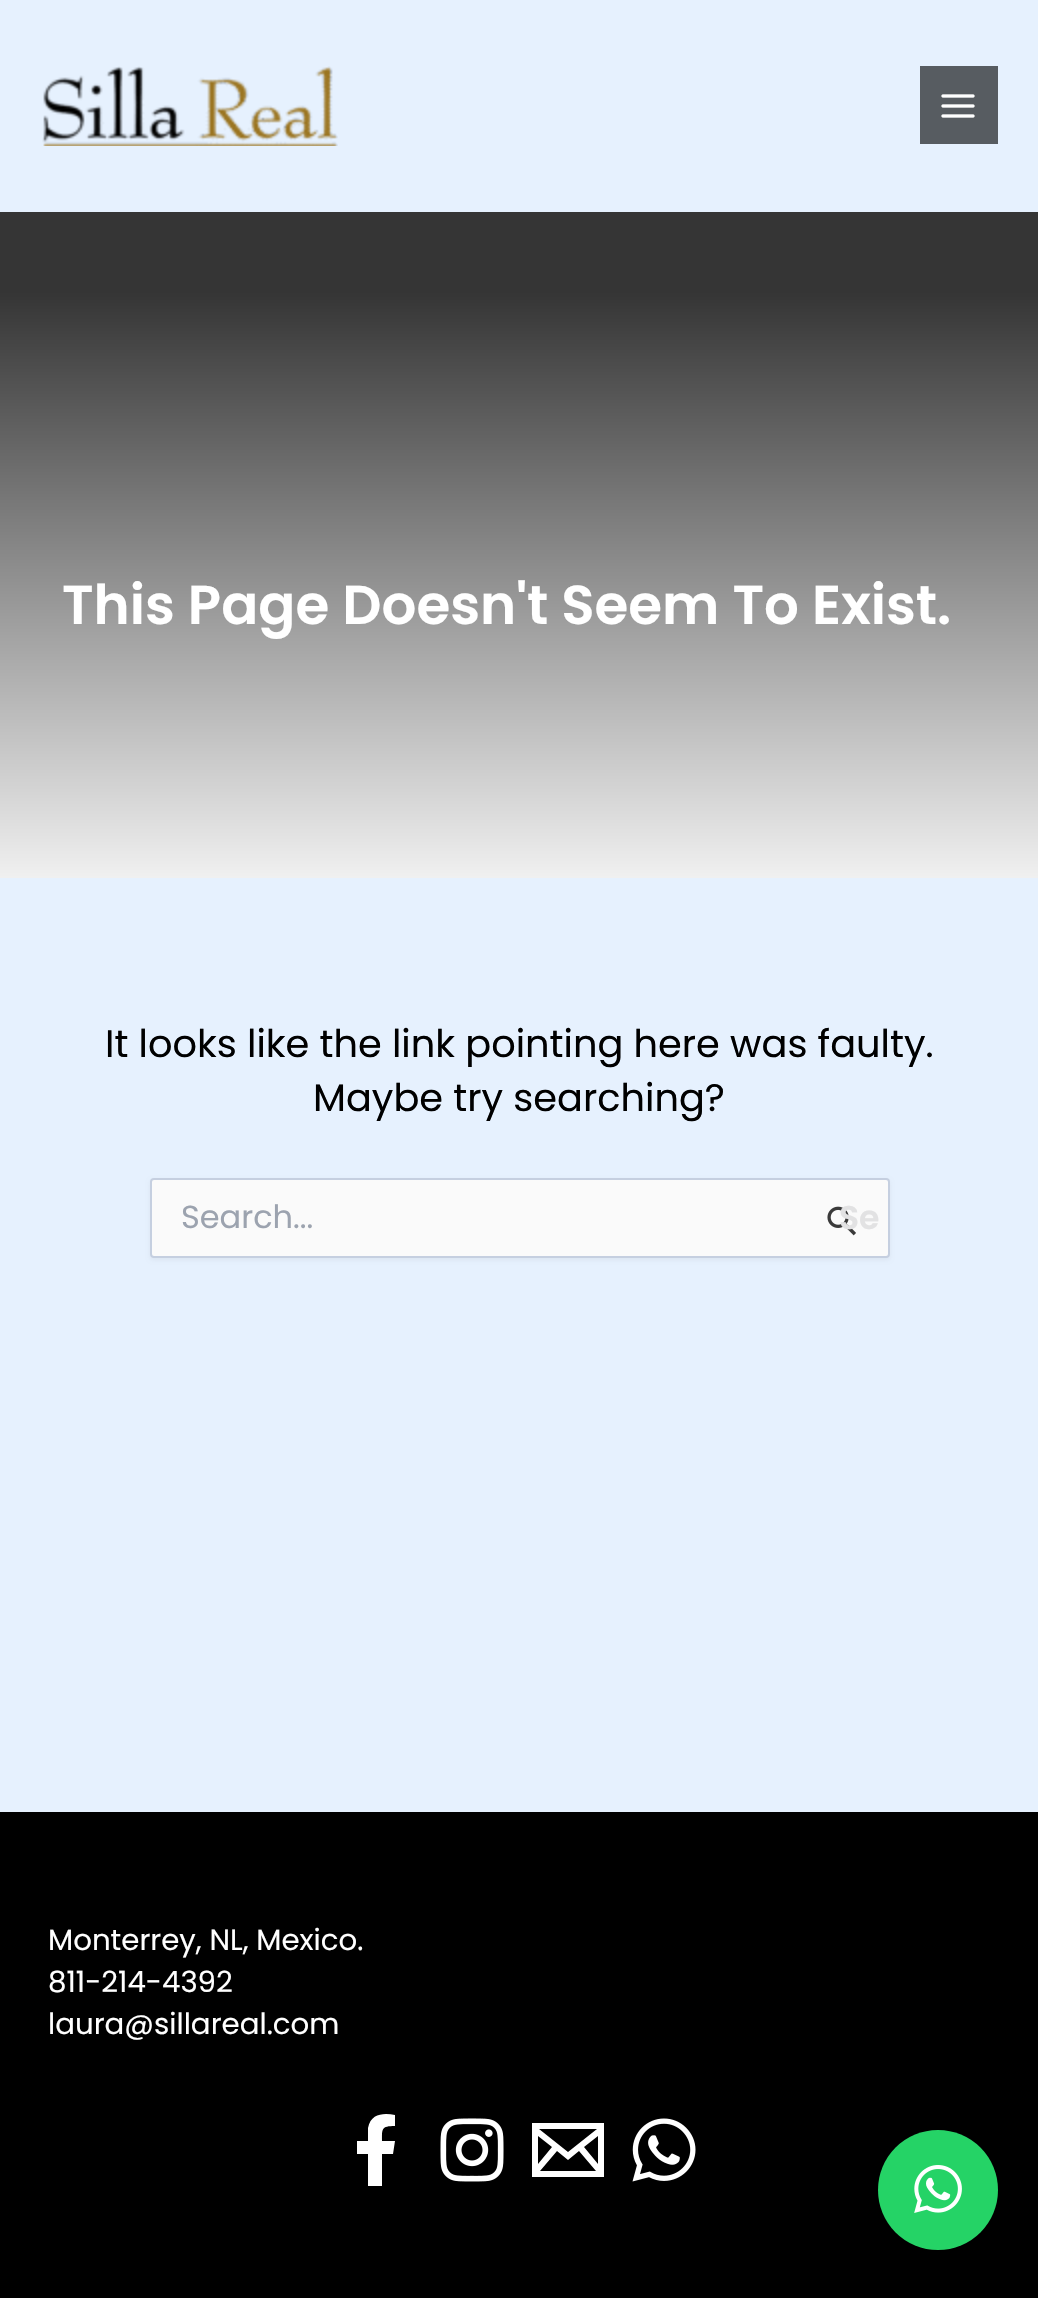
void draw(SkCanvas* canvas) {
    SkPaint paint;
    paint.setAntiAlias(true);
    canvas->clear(0xFFE6F1FE);
    canvas->drawImageRect(SkImages::DeferredFromEncodedData(SkData::MakeFromFileName("img1.png")), SkRect::MakeXYWH(42, 66, 296, 80), SkSamplingOptions());
    paint.setColor(0xFF575C61);
    canvas->drawRect(SkRect::MakeXYWH(920, 66, 78, 78), paint);
    canvas->drawImageRect(SkImages::DeferredFromEncodedData(SkData::MakeFromFileName("img2.png")), SkRect::MakeXYWH(941, 94, 34, 24), SkSamplingOptions());
    {
        const SkColor colors[] = {0xFF353535, 0xFFF0F0F0};
        const float stops[] = {0.12f, 1};
        const SkPoint ends[] = {{519, 212}, {519, 878}};
        paint.setShader(SkGradientShader::MakeLinear(ends, colors, stops, 2, SkTileMode::kClamp));
        paint.setAlpha(255);
    }
    canvas->drawRect(SkRect::MakeXYWH(0, 212, 1038, 666), paint);
    SkFont font1(fontMgr->matchFamilyStyle("Poppins", SkFontStyle(600, SkFontStyle::kNormal_Width, SkFontStyle::kUpright_Slant)), 54.75f);
    font1.setSubpixel(true);
    paint.setShader(nullptr);
    paint.setColor(0xFFFFFFFF);
    canvas->drawString("This Page Doesn't Seem To Exist.", 62, 624, font1, paint);
    SkFont font2(fontMgr->matchFamilyStyle("Poppins", SkFontStyle::Normal()), 38.3f);
    font2.setSubpixel(true);
    paint.setColor(0xFF000000);
    canvas->drawString("It looks like the link pointing here was faulty.", 105, 1057, font2, paint);
    canvas->drawString("Maybe try searching?", 313, 1111, font2, paint);
    paint.setColor(0x0D000000);
    paint.setMaskFilter(SkMaskFilter::MakeBlur(kNormal_SkBlurStyle, 2));
    canvas->drawRoundRect(SkRect::MakeXYWH(150, 1180, 740, 80), 4, 4, paint);
    paint.setMaskFilter(nullptr);
    paint.setColor(0xFFFAFAFA);
    canvas->drawRoundRect(SkRect::MakeXYWH(150, 1178, 740, 80), 4, 4, paint);
    paint.setStyle(SkPaint::kStroke_Style);
    paint.setStrokeWidth(2);
    paint.setColor(0x36002D80);
    canvas->drawRoundRect(SkRect::MakeXYWH(151, 1179, 738, 78), 3, 3, paint);
    SkFont font3(fontMgr->matchFamilyStyle("Poppins", SkFontStyle::Normal()), 32);
    font3.setSubpixel(true);
    paint.setStyle(SkPaint::kFill_Style);
    paint.setColor(0xFF9CA3AF);
    canvas->drawString("Search...", 181, 1228, font3, paint);
    canvas->drawImageRect(SkImages::DeferredFromEncodedData(SkData::MakeFromFileName("img3.png")), SkRect::MakeXYWH(827, 1206, 29, 30), SkSamplingOptions());
    SkFont font4(fontMgr->matchFamilyStyle("Poppins", SkFontStyle(600, SkFontStyle::kNormal_Width, SkFontStyle::kUpright_Slant)), 33);
    font4.setSubpixel(true);
    paint.setColor(0xFFE2E2E3);
    canvas->drawString("Se", 839, 1229, font4, paint);
    paint.setColor(0xFF000000);
    canvas->drawRect(SkRect::MakeXYWH(0, 1812, 1038, 486), paint);
    SkFont font5(fontMgr->matchFamilyStyle("Poppins", SkFontStyle::Normal()), 29.25f);
    font5.setSubpixel(true);
    paint.setColor(0xFFFFFFFF);
    canvas->drawString("Monterrey, NL, Mexico.", 48, 1950, font5, paint);
    canvas->drawString("811-214-4392", 48, 1992, font5, paint);
    canvas->drawString("laura@sillareal.com", 48, 2034, font5, paint);
    canvas->drawPath(SkPathBuilder().moveTo(393, 2154).lineTo(395, 2141).lineTo(382, 2141).cubicTo(382, 2129, 381, 2126, 395, 2126).lineTo(395, 2115).cubicTo(384, 2113, 371, 2113, 368, 2128).lineTo(368, 2141).lineTo(357, 2141).lineTo(357, 2154).lineTo(368, 2154).lineTo(368, 2186).lineTo(382, 2186).lineTo(382, 2154).close().detach(), paint);
    canvas->drawImageRect(SkImages::DeferredFromEncodedData(SkData::MakeFromFileName("img4.png")), SkRect::MakeXYWH(440, 2118, 64, 64), SkSamplingOptions());
    canvas->drawPath(SkPathBuilder().moveTo(532, 2123).lineTo(532, 2177).lineTo(604, 2177).lineTo(604, 2123).close().moveTo(552, 2147).lineTo(538, 2164).lineTo(538, 2136).close().moveTo(539, 2129).lineTo(597, 2129).lineTo(568, 2152).close().moveTo(557, 2151).lineTo(568, 2160).lineTo(579, 2151).lineTo(596, 2171).lineTo(540, 2171).close().moveTo(584, 2147).lineTo(598, 2136).lineTo(598, 2164).close().detach(), paint);
    canvas->drawImageRect(SkImages::DeferredFromEncodedData(SkData::MakeFromFileName("img5.png")), SkRect::MakeXYWH(632, 2118, 64, 64), SkSamplingOptions());
    paint.setColor(0xFF25D366);
    canvas->drawCircle(938, 2190, 60, paint);
    canvas->drawImageRect(SkImages::DeferredFromEncodedData(SkData::MakeFromFileName("img6.png")), SkRect::MakeXYWH(914, 2165, 48, 48), SkSamplingOptions());
}
